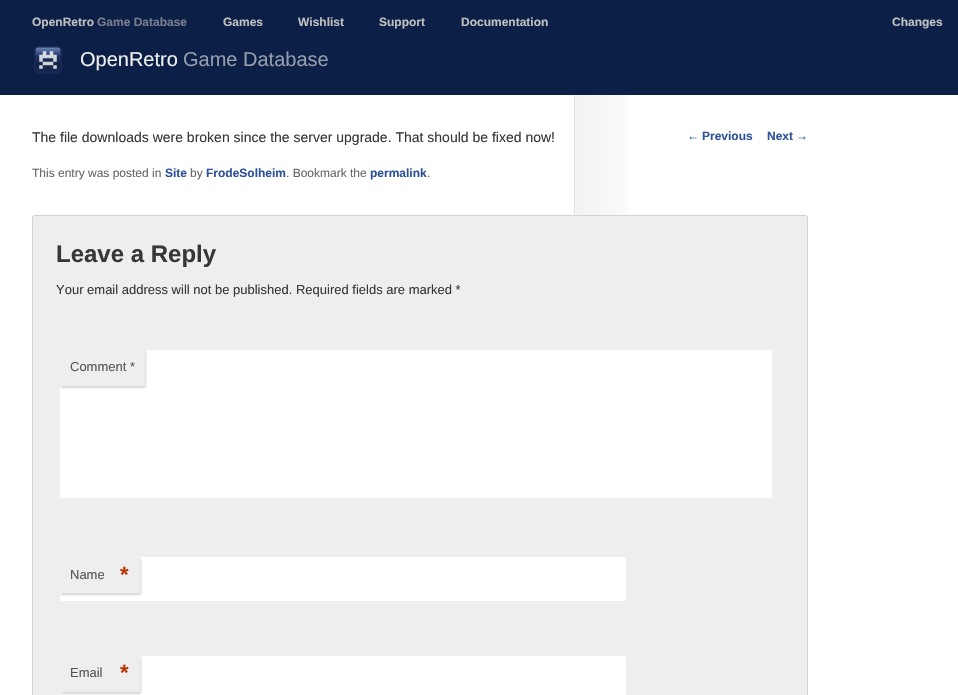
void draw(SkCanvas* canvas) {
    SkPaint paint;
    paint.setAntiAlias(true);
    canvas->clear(0xFFFFFFFF);
    canvas->drawImageRect(SkImages::DeferredFromEncodedData(SkData::MakeFromFileName("img1.png")), SkRect::MakeXYWH(574, 95, 54, 120), SkSamplingOptions());
    paint.setColor(0xFF0C2047);
    canvas->drawRect(SkRect::MakeXYWH(0, 0, 958, 95), paint);
    SkFont font1(fontMgr->matchFamilyStyle("Liberation Sans", SkFontStyle::Bold()), 12);
    font1.setSubpixel(true);
    paint.setColor(0xFFC0C0C0);
    canvas->drawString("OpenRetro", 32, 26, font1, paint);
    paint.setColor(0xFF788090);
    canvas->drawString("Game Database", 97, 26, font1, paint);
    paint.setColor(0xFFC0C0C0);
    canvas->drawString("Games", 223, 26, font1, paint);
    canvas->drawString("Wishlist", 298, 26, font1, paint);
    canvas->drawString("Support", 379, 26, font1, paint);
    canvas->drawString("Documentation", 461, 26, font1, paint);
    canvas->drawString("Changes", 892, 26, font1, paint);
    canvas->drawImageRect(SkImages::DeferredFromEncodedData(SkData::MakeFromFileName("img2.png")), SkRect::MakeXYWH(34, 46, 28, 28), SkSamplingOptions());
    SkFont font2(fontMgr->matchFamilyStyle("Liberation Sans", SkFontStyle::Normal()), 20);
    font2.setSubpixel(true);
    paint.setColor(0xFFF0F0F0);
    canvas->drawString("OpenRetro", 80, 66, font2, paint);
    paint.setColor(0xFF959DAC);
    canvas->drawString("Game Database", 183, 66, font2, paint);
    SkFont font3(fontMgr->matchFamilyStyle("Liberation Sans", SkFontStyle::Normal()), 14);
    font3.setSubpixel(true);
    paint.setColor(0xFF373737);
    canvas->drawString("The file downloads were broken since the server upgrade. That should be fixed now!", 32, 142, font3, paint);
    SkFont font4(fontMgr->matchFamilyStyle("Liberation Sans", SkFontStyle::Normal()), 12);
    font4.setSubpixel(true);
    paint.setColor(0xFF666666);
    canvas->drawString("This entry was posted in", 32, 177, font4, paint);
    paint.setColor(0xFF2D519A);
    canvas->drawString("Site", 165, 177, font1, paint);
    paint.setColor(0xFF666666);
    canvas->drawString("by", 190, 177, font4, paint);
    paint.setColor(0xFF2D519A);
    canvas->drawString("FrodeSolheim", 206, 177, font1, paint);
    paint.setColor(0xFF666666);
    canvas->drawString(". Bookmark the", 286, 177, font4, paint);
    paint.setColor(0xFF2D519A);
    canvas->drawString("permalink", 370, 177, font1, paint);
    paint.setColor(0xFF666666);
    canvas->drawString(".", 427, 177, font4, paint);
    paint.setColor(0xFF2D519A);
    canvas->drawString("←", 687, 140, font4, paint);
    canvas->drawString("Previous", 702, 140, font1, paint);
    canvas->drawString("Next", 767, 140, font1, paint);
    canvas->drawString("→", 796, 140, font4, paint);
    paint.setColor(0xFFEEEEEE);
    canvas->drawRoundRect(SkRect::MakeXYWH(32.5f, 215.5f, 775, 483), 2.5f, 2.5f, paint);
    paint.setStyle(SkPaint::kStroke_Style);
    paint.setStrokeWidth(1);
    paint.setColor(0xFFD3D3D3);
    canvas->drawRoundRect(SkRect::MakeXYWH(32.5f, 215.5f, 775, 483), 2.5f, 2.5f, paint);
    SkFont font5(fontMgr->matchFamilyStyle("Liberation Sans", SkFontStyle::Bold()), 24);
    font5.setSubpixel(true);
    paint.setStyle(SkPaint::kFill_Style);
    paint.setColor(0xFF373737);
    canvas->drawString("Leave a Reply", 56, 262, font5, paint);
    SkFont font6(fontMgr->matchFamilyStyle("Liberation Sans", SkFontStyle::Normal()), 13);
    font6.setSubpixel(true);
    canvas->drawString("Your email address will not be published. Required fields are marked *", 56, 294, font6, paint);
    paint.setColor(0xFFFFFFFF);
    canvas->drawRoundRect(SkRect::MakeXYWH(58, 348, 716, 152), 3, 3, paint);
    paint.setStyle(SkPaint::kStroke_Style);
    paint.setStrokeWidth(4);
    paint.setColor(0xFFEEEEEE);
    canvas->drawRoundRect(SkRect::MakeXYWH(58, 348, 716, 152), 3, 3, paint);
    paint.setStyle(SkPaint::kFill_Style);
    paint.setColor(0xCCCCCCCC);
    paint.setMaskFilter(SkMaskFilter::MakeBlur(kNormal_SkBlurStyle, 1));
    canvas->drawRect(SkRect::MakeXYWH(61, 351, 85, 37), paint);
    paint.setMaskFilter(nullptr);
    paint.setColor(0xFFEEEEEE);
    canvas->drawRect(SkRect::MakeXYWH(60, 350, 85, 36), paint);
    paint.setColor(0xFF555555);
    canvas->drawString("Comment *", 70, 371, font6, paint);
    paint.setColor(0xFFFFFFFF);
    canvas->drawRoundRect(SkRect::MakeXYWH(58, 555, 570, 48), 3, 3, paint);
    paint.setStyle(SkPaint::kStroke_Style);
    paint.setColor(0xFFEEEEEE);
    canvas->drawRoundRect(SkRect::MakeXYWH(58, 555, 570, 48), 3, 3, paint);
    paint.setStyle(SkPaint::kFill_Style);
    paint.setColor(0xCCCCCCCC);
    paint.setMaskFilter(SkMaskFilter::MakeBlur(kNormal_SkBlurStyle, 1));
    canvas->drawRect(SkRect::MakeXYWH(61, 559, 80, 36), paint);
    paint.setMaskFilter(nullptr);
    paint.setColor(0xFFEEEEEE);
    canvas->drawRect(SkRect::MakeXYWH(60, 557, 80, 36), paint);
    paint.setColor(0xFF555555);
    canvas->drawString("Name", 70, 579, font6, paint);
    SkFont font7(fontMgr->matchFamilyStyle("Liberation Sans", SkFontStyle::Bold()), 22);
    font7.setSubpixel(true);
    paint.setColor(0xFFBD3500);
    canvas->drawString("*", 120, 582, font7, paint);
    paint.setColor(0xFFFFFFFF);
    canvas->drawRoundRect(SkRect::MakeXYWH(58, 654, 570, 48), 3, 3, paint);
    paint.setStyle(SkPaint::kStroke_Style);
    paint.setColor(0xFFEEEEEE);
    canvas->drawRoundRect(SkRect::MakeXYWH(58, 654, 570, 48), 3, 3, paint);
    paint.setStyle(SkPaint::kFill_Style);
    paint.setColor(0xCCCCCCCC);
    paint.setMaskFilter(SkMaskFilter::MakeBlur(kNormal_SkBlurStyle, 1));
    canvas->drawRect(SkRect::MakeXYWH(61, 657, 80, 37), paint);
    paint.setMaskFilter(nullptr);
    paint.setColor(0xFFEEEEEE);
    canvas->drawRect(SkRect::MakeXYWH(60, 656, 80, 36), paint);
    paint.setColor(0xFF555555);
    canvas->drawString("Email", 70, 677, font6, paint);
    paint.setColor(0xFFBD3500);
    canvas->drawString("*", 120, 680, font7, paint);
}
